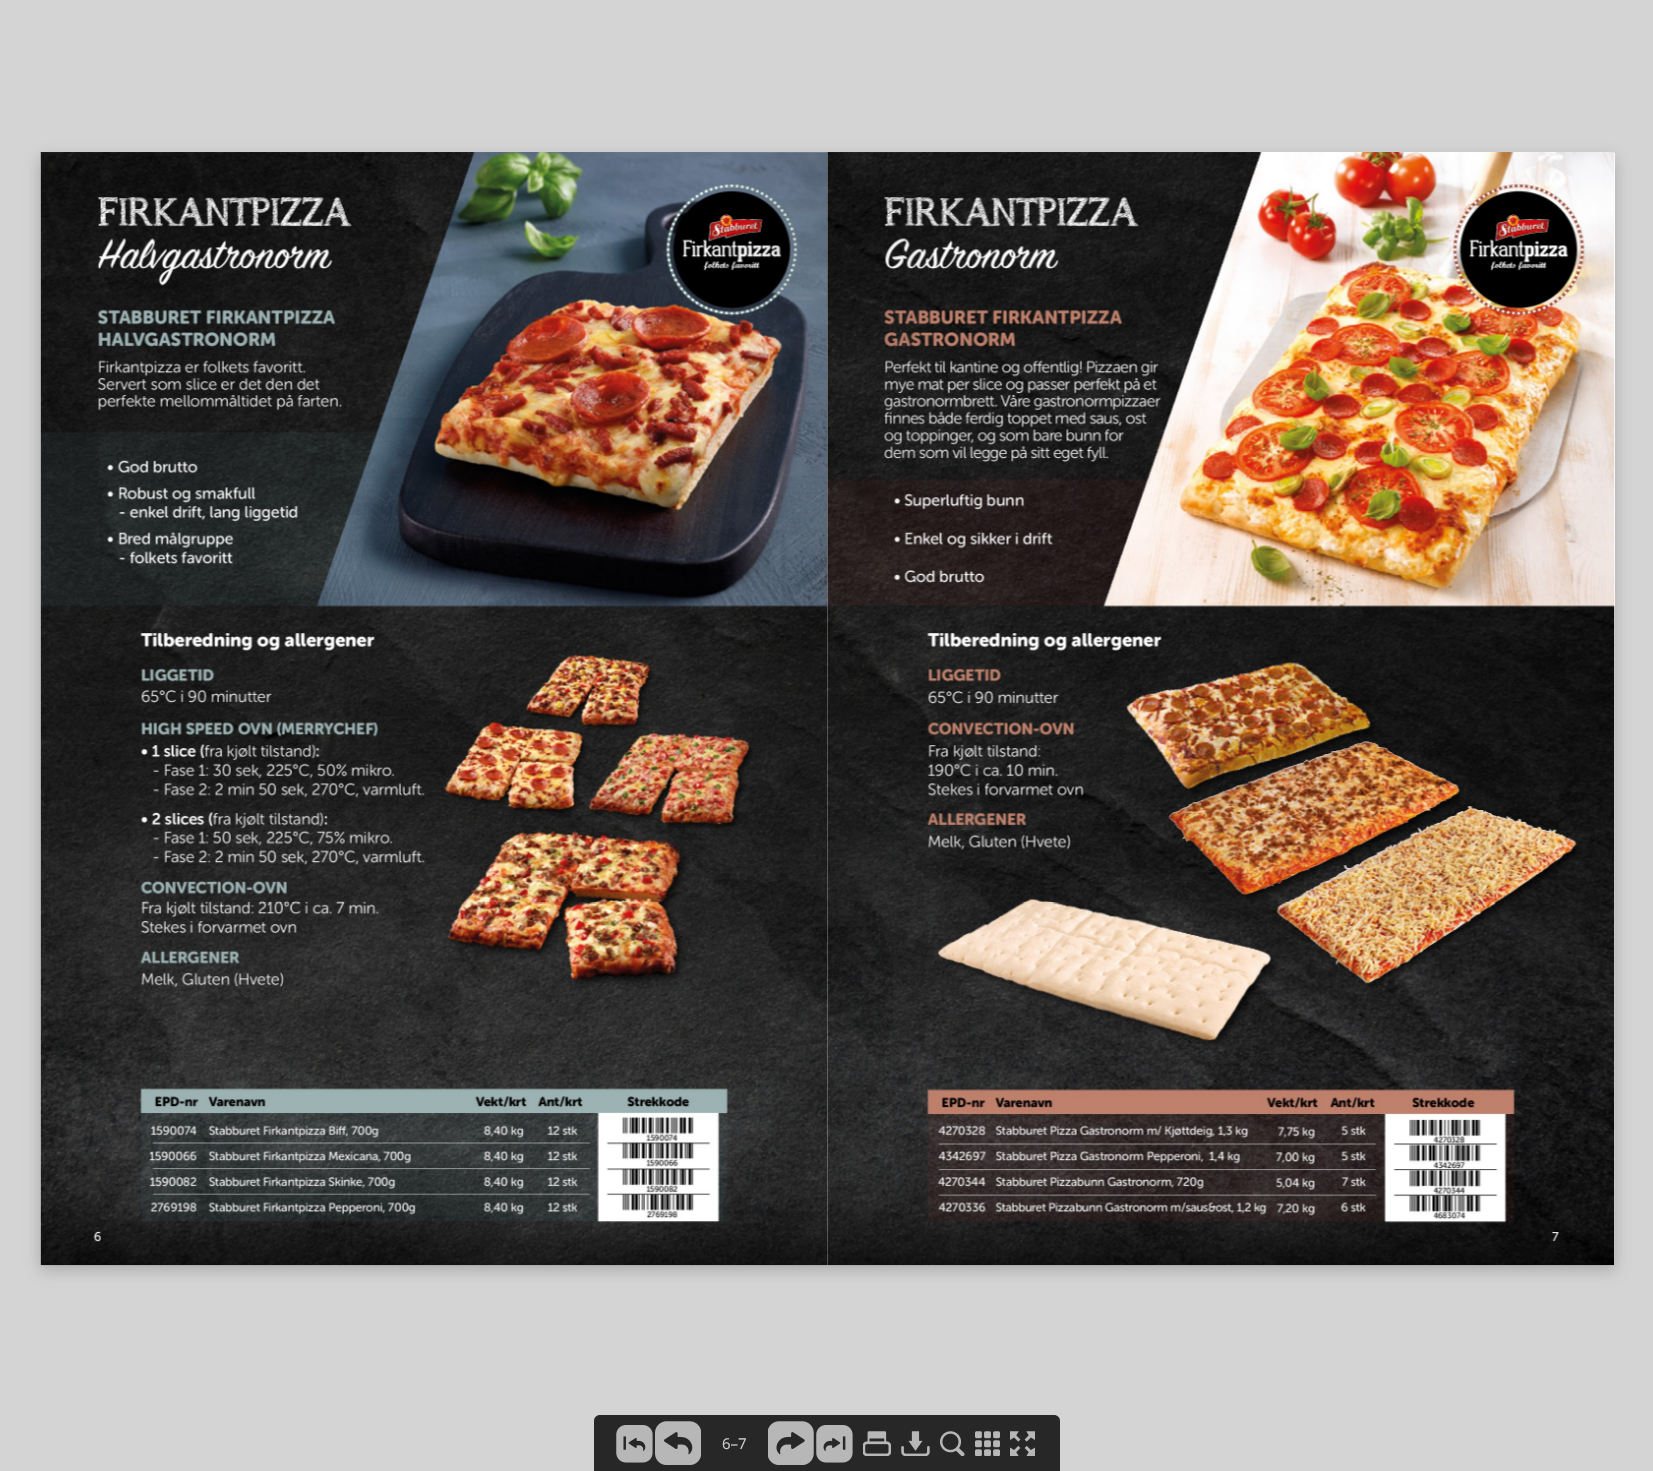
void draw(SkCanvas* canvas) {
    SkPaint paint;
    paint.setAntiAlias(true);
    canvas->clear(0xFFD4D4D4);
    paint.setColor(0xFFAAAAAA);
    paint.setMaskFilter(SkMaskFilter::MakeBlur(kNormal_SkBlurStyle, 7.5f));
    canvas->drawRect(SkRect::MakeXYWH(40, 158, 1575, 1112), paint);
    paint.setMaskFilter(nullptr);
    paint.setColor(0xFFFFFFFF);
    canvas->drawRect(SkRect::MakeXYWH(40, 153, 788, 1112), paint);
    canvas->drawImageRect(SkImages::DeferredFromEncodedData(SkData::MakeFromFileName("img1.png")), SkRect::MakeXYWH(40, 152, 788, 1114), SkSamplingOptions());
    {
        const SkColor colors[] = {0x00000000, 0x26000000};
        const float stops[] = {0, 1};
        const SkPoint ends[] = {{715, 709}, {828, 709}};
        paint.setShader(SkGradientShader::MakeLinear(ends, colors, stops, 2, SkTileMode::kClamp));
        paint.setAlpha(255);
    }
    canvas->drawRect(SkRect::MakeXYWH(731, 153, 97, 1112), paint);
    paint.setShader(nullptr);
    paint.setColor(0xFFFFFFFF);
    canvas->drawRect(SkRect::MakeXYWH(1614, 153, 1, 1112), paint);
    canvas->drawImageRect(SkImages::DeferredFromEncodedData(SkData::MakeFromFileName("img2.png")), SkRect::MakeXYWH(827, 152, 788, 1114), SkSamplingOptions());
    paint.setColor(0xFF272727);
    canvas->drawPath(SkPathBuilder().moveTo(600, 1415).lineTo(1054, 1415).cubicTo(1057.5f, 1415, 1060, 1417.5f, 1060, 1421).lineTo(1060, 1471).lineTo(594, 1471).lineTo(594, 1421).cubicTo(594, 1417.5f, 596.5f, 1415, 600, 1415).close().detach(), paint);
    canvas->drawImageRect(SkImages::DeferredFromEncodedData(SkData::MakeFromFileName("img3.png")), SkRect::MakeXYWH(616, 1425, 37, 38), SkSamplingOptions());
    canvas->drawImageRect(SkImages::DeferredFromEncodedData(SkData::MakeFromFileName("img4.png")), SkRect::MakeXYWH(655, 1421, 46, 44), SkSamplingOptions());
    SkFont font1(fontMgr->matchFamilyStyle("Open Sans", SkFontStyle::Normal()), 15);
    font1.setSubpixel(true);
    paint.setColor(0xFFCCCCCC);
    canvas->drawString("6–7", 722, 1449, font1, paint);
    canvas->drawImageRect(SkImages::DeferredFromEncodedData(SkData::MakeFromFileName("img5.png")), SkRect::MakeXYWH(768, 1421, 46, 44), SkSamplingOptions());
    canvas->drawImageRect(SkImages::DeferredFromEncodedData(SkData::MakeFromFileName("img6.png")), SkRect::MakeXYWH(816, 1425, 37, 38), SkSamplingOptions());
    canvas->drawImageRect(SkImages::DeferredFromEncodedData(SkData::MakeFromFileName("img7.png")), SkRect::MakeXYWH(863, 1431, 28, 25), SkSamplingOptions());
    canvas->drawImageRect(SkImages::DeferredFromEncodedData(SkData::MakeFromFileName("img8.png")), SkRect::MakeXYWH(901, 1431, 29, 25), SkSamplingOptions());
    canvas->drawImageRect(SkImages::DeferredFromEncodedData(SkData::MakeFromFileName("img9.png")), SkRect::MakeXYWH(940, 1431, 25, 25), SkSamplingOptions());
    canvas->drawImageRect(SkImages::DeferredFromEncodedData(SkData::MakeFromFileName("img10.png")), SkRect::MakeXYWH(975, 1431, 25, 25), SkSamplingOptions());
    canvas->drawImageRect(SkImages::DeferredFromEncodedData(SkData::MakeFromFileName("img11.png")), SkRect::MakeXYWH(1010, 1431, 25, 25), SkSamplingOptions());
}
